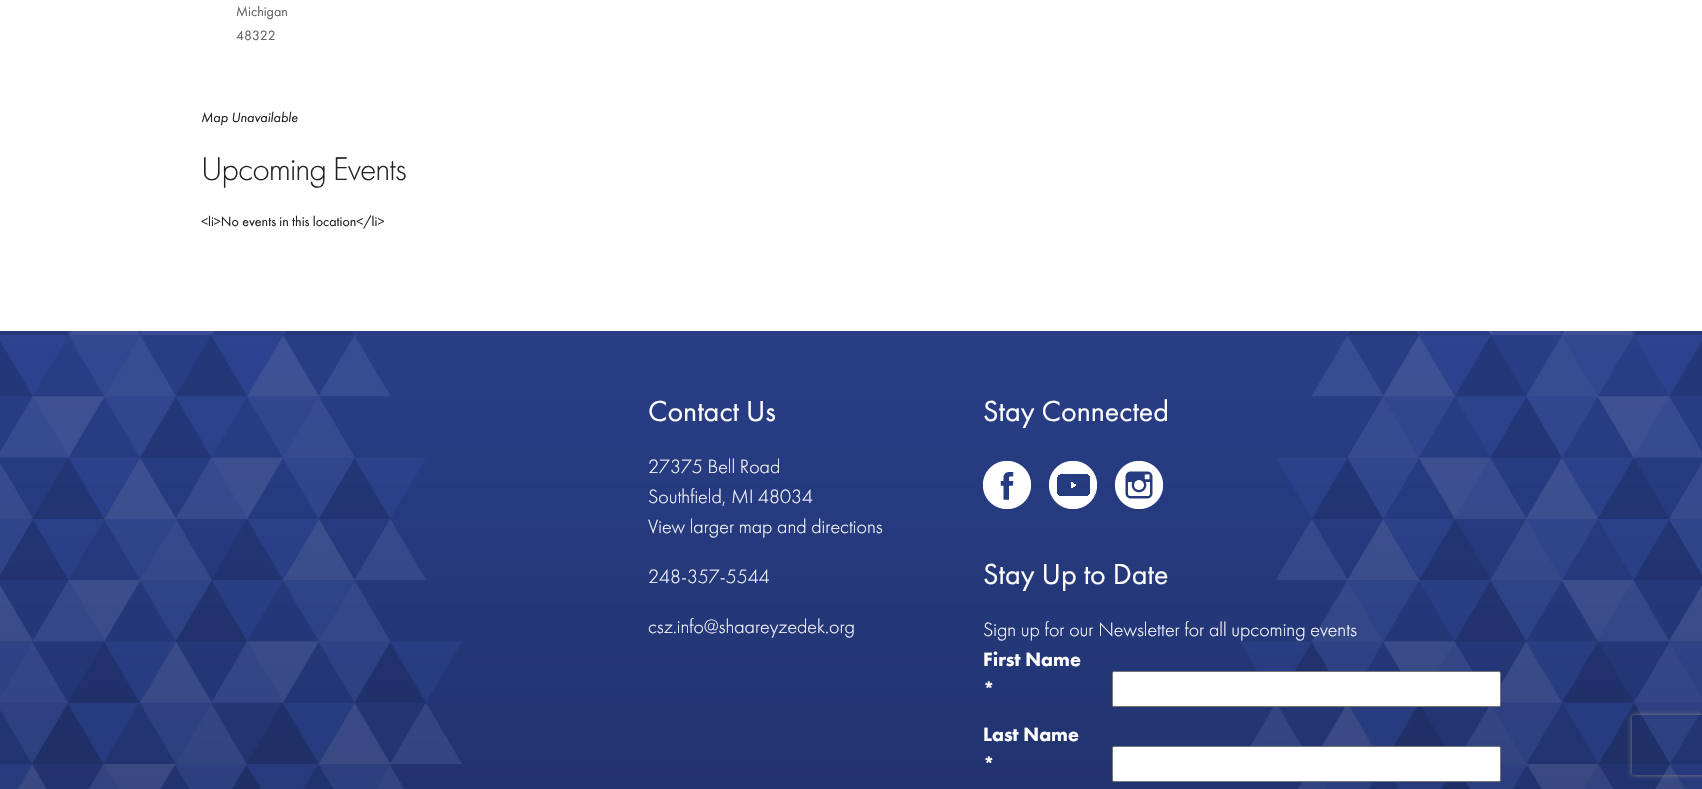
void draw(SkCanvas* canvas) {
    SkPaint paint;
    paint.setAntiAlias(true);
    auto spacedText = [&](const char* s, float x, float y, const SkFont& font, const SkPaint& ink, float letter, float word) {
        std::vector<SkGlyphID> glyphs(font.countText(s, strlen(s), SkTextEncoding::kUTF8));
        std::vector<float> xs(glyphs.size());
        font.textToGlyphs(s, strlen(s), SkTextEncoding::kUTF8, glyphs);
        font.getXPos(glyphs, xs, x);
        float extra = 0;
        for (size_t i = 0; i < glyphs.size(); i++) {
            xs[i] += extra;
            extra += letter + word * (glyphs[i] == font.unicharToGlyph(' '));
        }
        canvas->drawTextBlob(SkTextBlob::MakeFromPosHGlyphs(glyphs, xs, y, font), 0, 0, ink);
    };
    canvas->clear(0xFFFFFFFF);
    SkFont font1(fontMgr->matchFamilyStyle("Futura PT", SkFontStyle::Normal()), 14);
    font1.setSubpixel(true);
    paint.setColor(0xFF666666);
    canvas->drawString("Michigan", 236, 16, font1, paint);
    canvas->drawString("48322", 236, 40, font1, paint);
    SkFont font2(fontMgr->matchFamilyStyle("Futura PT", SkFontStyle::Italic()), 14);
    font2.setSubpixel(true);
    paint.setColor(0xFF212121);
    canvas->drawString("Map Unavailable", 201, 122, font2, paint);
    SkFont font3(fontMgr->matchFamilyStyle("Futura PT", SkFontStyle(300, SkFontStyle::kNormal_Width, SkFontStyle::kUpright_Slant)), 34);
    font3.setSubpixel(true);
    spacedText("Upcoming Events", 201, 180, font3, paint, -1, 0);
    canvas->drawString("<li>No events in this location</li>", 201, 226, font1, paint);
    canvas->drawImageRect(SkImages::DeferredFromEncodedData(SkData::MakeFromFileName("img1.png")), SkRect::MakeXYWH(0, 331, 1702, 458), SkSamplingOptions());
    SkFont font4(fontMgr->matchFamilyStyle("Futura PT", SkFontStyle::Normal()), 30);
    font4.setSubpixel(true);
    paint.setColor(0xFFFFFFFF);
    canvas->drawString("Contact Us", 648, 421, font4, paint);
    SkFont font5(fontMgr->matchFamilyStyle("Futura PT", SkFontStyle(300, SkFontStyle::kNormal_Width, SkFontStyle::kUpright_Slant)), 20);
    font5.setSubpixel(true);
    canvas->drawString("27375 Bell Road", 648, 473, font5, paint);
    canvas->drawString("Southfield, MI 48034", 648, 503, font5, paint);
    canvas->drawString("View larger map and directions", 648, 533, font5, paint);
    canvas->drawString("248-357-5544", 648, 583, font5, paint);
    canvas->drawString("csz.info@shaareyzedek.org", 648, 633, font5, paint);
    canvas->drawString("Stay Connected", 983, 421, font4, paint);
    canvas->drawImageRect(SkImages::DeferredFromEncodedData(SkData::MakeFromFileName("img2.png")), SkRect::MakeXYWH(983, 461, 48, 48), SkSamplingOptions());
    canvas->drawImageRect(SkImages::DeferredFromEncodedData(SkData::MakeFromFileName("img3.png")), SkRect::MakeXYWH(1049, 461, 48, 48), SkSamplingOptions());
    canvas->drawImageRect(SkImages::DeferredFromEncodedData(SkData::MakeFromFileName("img4.png")), SkRect::MakeXYWH(1115, 461, 48, 48), SkSamplingOptions());
    canvas->drawString("Stay Up to Date", 983, 584, font4, paint);
    canvas->drawString("Sign up for our Newsletter for all upcoming events", 983, 636, font5, paint);
    SkFont font6(fontMgr->matchFamilyStyle("Futura PT", SkFontStyle(900, SkFontStyle::kNormal_Width, SkFontStyle::kUpright_Slant)), 20);
    font6.setSubpixel(true);
    canvas->drawString("First Name", 983, 666, font6, paint);
    canvas->drawString("*", 983, 696, font6, paint);
    canvas->drawRoundRect(SkRect::MakeXYWH(1112.5f, 671.5f, 388, 35), 1.5f, 1.5f, paint);
    paint.setStyle(SkPaint::kStroke_Style);
    paint.setStrokeWidth(1);
    paint.setColor(0xFF767676);
    canvas->drawRoundRect(SkRect::MakeXYWH(1112.5f, 671.5f, 388, 35), 1.5f, 1.5f, paint);
    paint.setStyle(SkPaint::kFill_Style);
    paint.setColor(0xFFFFFFFF);
    canvas->drawString("Last Name", 983, 741, font6, paint);
    canvas->drawString("*", 983, 771, font6, paint);
    canvas->drawRoundRect(SkRect::MakeXYWH(1112.5f, 746.5f, 388, 35), 1.5f, 1.5f, paint);
    paint.setStyle(SkPaint::kStroke_Style);
    paint.setColor(0xFF767676);
    canvas->drawRoundRect(SkRect::MakeXYWH(1112.5f, 746.5f, 388, 35), 1.5f, 1.5f, paint);
    canvas->save();
    canvas->clipPath(SkPathBuilder(SkPathFillType::kEvenOdd).moveTo(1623, 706).lineTo(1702, 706).lineTo(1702, 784).lineTo(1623, 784).close().moveTo(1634, 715).lineTo(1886, 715).cubicTo(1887, 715, 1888, 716, 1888, 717).lineTo(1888, 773).cubicTo(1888, 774, 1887, 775, 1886, 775).lineTo(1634, 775).cubicTo(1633, 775, 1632, 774, 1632, 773).lineTo(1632, 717).cubicTo(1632, 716, 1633, 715, 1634, 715).close().detach(), true);
    paint.setStyle(SkPaint::kFill_Style);
    paint.setColor(0xFF808080);
    paint.setMaskFilter(SkMaskFilter::MakeBlur(kNormal_SkBlurStyle, 2.5f));
    canvas->drawRoundRect(SkRect::MakeXYWH(1632, 715, 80, 60), 2, 2, paint);
    paint.setMaskFilter(nullptr);
    canvas->restore();
}
